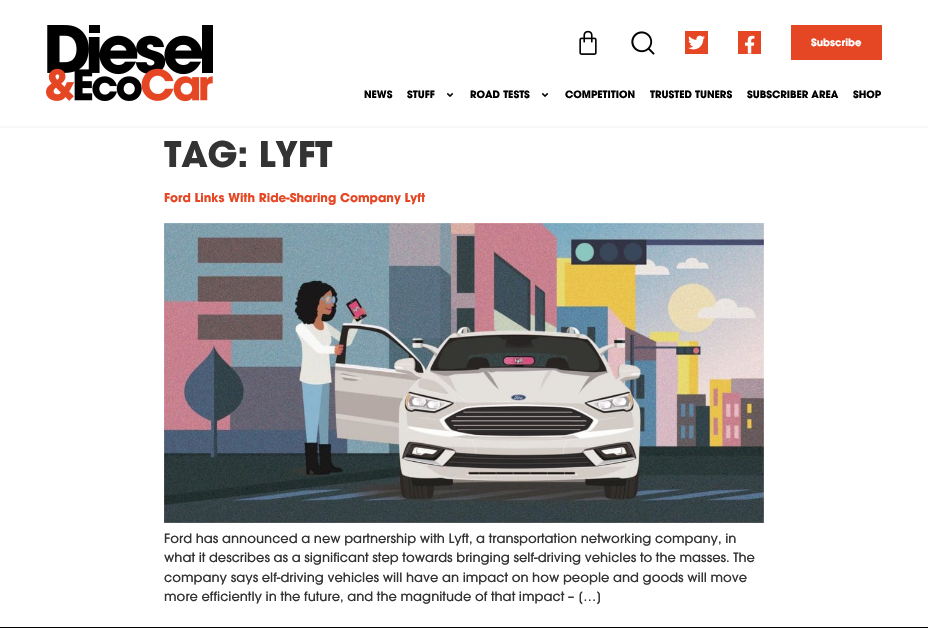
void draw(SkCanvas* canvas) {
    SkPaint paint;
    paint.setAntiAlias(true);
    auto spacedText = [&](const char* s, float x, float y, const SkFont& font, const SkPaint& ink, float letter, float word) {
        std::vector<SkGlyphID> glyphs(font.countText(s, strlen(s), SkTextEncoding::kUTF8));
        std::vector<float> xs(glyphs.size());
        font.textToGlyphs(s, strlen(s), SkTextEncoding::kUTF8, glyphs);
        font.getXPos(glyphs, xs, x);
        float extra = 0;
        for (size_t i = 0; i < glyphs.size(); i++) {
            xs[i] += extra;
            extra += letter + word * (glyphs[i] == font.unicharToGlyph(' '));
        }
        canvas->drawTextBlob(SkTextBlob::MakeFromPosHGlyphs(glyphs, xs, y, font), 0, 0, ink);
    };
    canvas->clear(0xFFFFFFFF);
    paint.setColor(0xFFF8F8F8);
    canvas->drawRect(SkRect::MakeXYWH(0, 126, 928, 2), paint);
    canvas->drawImageRect(SkImages::DeferredFromEncodedData(SkData::MakeFromFileName("img1.png")), SkRect::MakeXYWH(46, 25, 167, 76), SkSamplingOptions());
    canvas->drawImageRect(SkImages::DeferredFromEncodedData(SkData::MakeFromFileName("img2.png")), SkRect::MakeXYWH(579, 30, 18, 25), SkSamplingOptions());
    canvas->drawImageRect(SkImages::DeferredFromEncodedData(SkData::MakeFromFileName("img3.png")), SkRect::MakeXYWH(631, 31, 24, 24), SkSamplingOptions());
    paint.setColor(0xFFE54624);
    canvas->drawRect(SkRect::MakeXYWH(685, 31, 23, 23), paint);
    canvas->drawImageRect(SkImages::DeferredFromEncodedData(SkData::MakeFromFileName("img4.png")), SkRect::MakeXYWH(688, 35, 17, 15), SkSamplingOptions());
    canvas->drawRect(SkRect::MakeXYWH(738, 31, 23, 23), paint);
    canvas->drawImageRect(SkImages::DeferredFromEncodedData(SkData::MakeFromFileName("img5.png")), SkRect::MakeXYWH(744, 35, 11, 19), SkSamplingOptions());
    canvas->drawRect(SkRect::MakeXYWH(791, 25, 91, 35), paint);
    SkFont font1(fontMgr->matchFamilyStyle("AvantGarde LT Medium", SkFontStyle::Bold()), 10);
    font1.setSubpixel(true);
    paint.setColor(0xFFFFFFFF);
    canvas->drawString("Subscribe", 811, 46, font1, paint);
    paint.setColor(0xFF000000);
    canvas->drawString("NEWS", 364, 98, font1, paint);
    canvas->drawString("STUFF", 407, 98, font1, paint);
    canvas->drawImageRect(SkImages::DeferredFromEncodedData(SkData::MakeFromFileName("img6.png")), SkRect::MakeXYWH(446, 93, 8, 4), SkSamplingOptions());
    canvas->drawString("ROAD TESTS", 470, 98, font1, paint);
    canvas->drawImageRect(SkImages::DeferredFromEncodedData(SkData::MakeFromFileName("img6.png")), SkRect::MakeXYWH(541, 93, 8, 4), SkSamplingOptions());
    canvas->drawString("COMPETITION", 565, 98, font1, paint);
    canvas->drawString("TRUSTED TUNERS", 650, 98, font1, paint);
    canvas->drawString("SUBSCRIBER AREA", 747, 98, font1, paint);
    canvas->drawString("SHOP", 853, 98, font1, paint);
    SkFont font2(fontMgr->matchFamilyStyle("AvantGarde LT Medium", SkFontStyle::Bold()), 35);
    font2.setSubpixel(true);
    paint.setColor(0xFF333333);
    spacedText("TAG: LYFT", 164, 167, font2, paint, -0.25f, 0);
    SkFont font3(fontMgr->matchFamilyStyle("AvantGarde LT Medium", SkFontStyle::Bold()), 12);
    font3.setSubpixel(true);
    paint.setColor(0xFFE54624);
    canvas->drawString("Ford Links With Ride-Sharing Company Lyft", 164, 202, font3, paint);
    canvas->drawImageRect(SkImages::DeferredFromEncodedData(SkData::MakeFromFileName("img7.png")), SkRect::MakeXYWH(164, 223, 600, 300), SkSamplingOptions());
    SkFont font4(fontMgr->matchFamilyStyle("AvantGarde LT Medium", SkFontStyle(500, SkFontStyle::kNormal_Width, SkFontStyle::kUpright_Slant)), 13);
    font4.setSubpixel(true);
    paint.setColor(0xFF333333);
    canvas->drawString("Ford has announced a new partnership with Lyft, a transportation networking company, in", 164, 543, font4, paint);
    canvas->drawString("what it describes as a significant step towards bringing self-driving vehicles to the masses. The", 164, 562, font4, paint);
    canvas->drawString("company says elf-driving vehicles will have an impact on how people and goods will move", 164, 582, font4, paint);
    canvas->drawString("more efficiently in the future, and the magnitude of that impact – […]", 164, 601, font4, paint);
    paint.setColor(0xFF000000);
    canvas->drawRect(SkRect::MakeXYWH(0, 627, 928, 1), paint);
}
